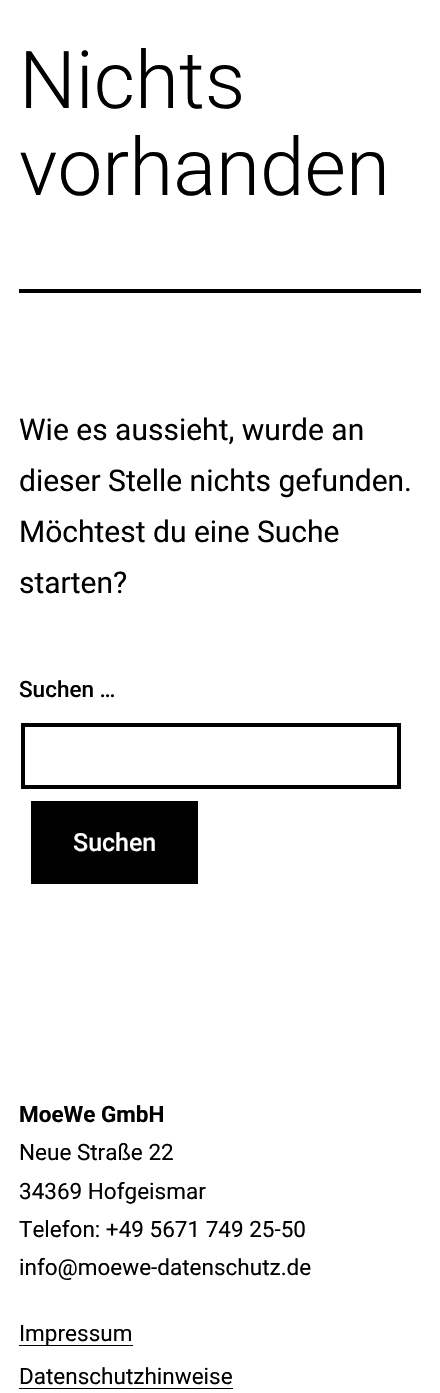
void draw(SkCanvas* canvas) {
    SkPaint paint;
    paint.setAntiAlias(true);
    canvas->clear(0xFFFFFFFF);
    paint.setColor(0xFF000000);
    canvas->drawRect(SkRect::MakeXYWH(19, 289, 402, 4), paint);
    SkFont font1(fontMgr->matchFamilyStyle("Roboto", SkFontStyle(300, SkFontStyle::kNormal_Width, SkFontStyle::kUpright_Slant)), 80);
    font1.setSubpixel(true);
    canvas->drawString("Nichts", 19, 108, font1, paint);
    canvas->drawString("vorhanden", 19, 195, font1, paint);
    SkFont font2(fontMgr->matchFamilyStyle("Roboto", SkFontStyle::Normal()), 30);
    font2.setSubpixel(true);
    canvas->drawString("Wie es aussieht, wurde an", 19, 440, font2, paint);
    canvas->drawString("dieser Stelle nichts gefunden.", 19, 491, font2, paint);
    canvas->drawString("Möchtest du eine Suche", 19, 542, font2, paint);
    canvas->drawString("starten?", 19, 593, font2, paint);
    SkFont font3(fontMgr->matchFamilyStyle("Roboto", SkFontStyle(500, SkFontStyle::kNormal_Width, SkFontStyle::kUpright_Slant)), 22.5f);
    font3.setSubpixel(true);
    canvas->drawString("Suchen …", 19, 697, font3, paint);
    paint.setStyle(SkPaint::kStroke_Style);
    paint.setStrokeWidth(4);
    canvas->drawRect(SkRect::MakeXYWH(23, 725, 376, 62), paint);
    paint.setStyle(SkPaint::kFill_Style);
    canvas->drawRect(SkRect::MakeXYWH(31, 801, 167, 83), paint);
    SkFont font4(fontMgr->matchFamilyStyle("Roboto", SkFontStyle(500, SkFontStyle::kNormal_Width, SkFontStyle::kUpright_Slant)), 25);
    font4.setSubpixel(true);
    paint.setColor(0xFFFFFFFF);
    canvas->drawString("Suchen", 73, 851, font4, paint);
    SkFont font5(fontMgr->matchFamilyStyle("Roboto", SkFontStyle::Bold()), 22.5f);
    font5.setSubpixel(true);
    paint.setColor(0xFF000000);
    canvas->drawString("MoeWe GmbH", 19, 1122, font5, paint);
    SkFont font6(fontMgr->matchFamilyStyle("Roboto", SkFontStyle::Normal()), 22.5f);
    font6.setSubpixel(true);
    canvas->drawString("Neue Straße 22", 19, 1160, font6, paint);
    canvas->drawString("34369 Hofgeismar", 19, 1199, font6, paint);
    canvas->drawString("Telefon: +49 5671 749 25-50", 19, 1237, font6, paint);
    canvas->drawString("info@moewe-datenschutz.de", 19, 1275, font6, paint);
    canvas->drawRect(SkRect::MakeXYWH(19, 1345, 114, 1), paint);
    canvas->drawString("Impressum", 19, 1341, font6, paint);
    canvas->drawString("Datenschutzhinweise", 19, 1384, font6, paint);
    canvas->drawRect(SkRect::MakeXYWH(19, 1388, 214, 1), paint);
}
